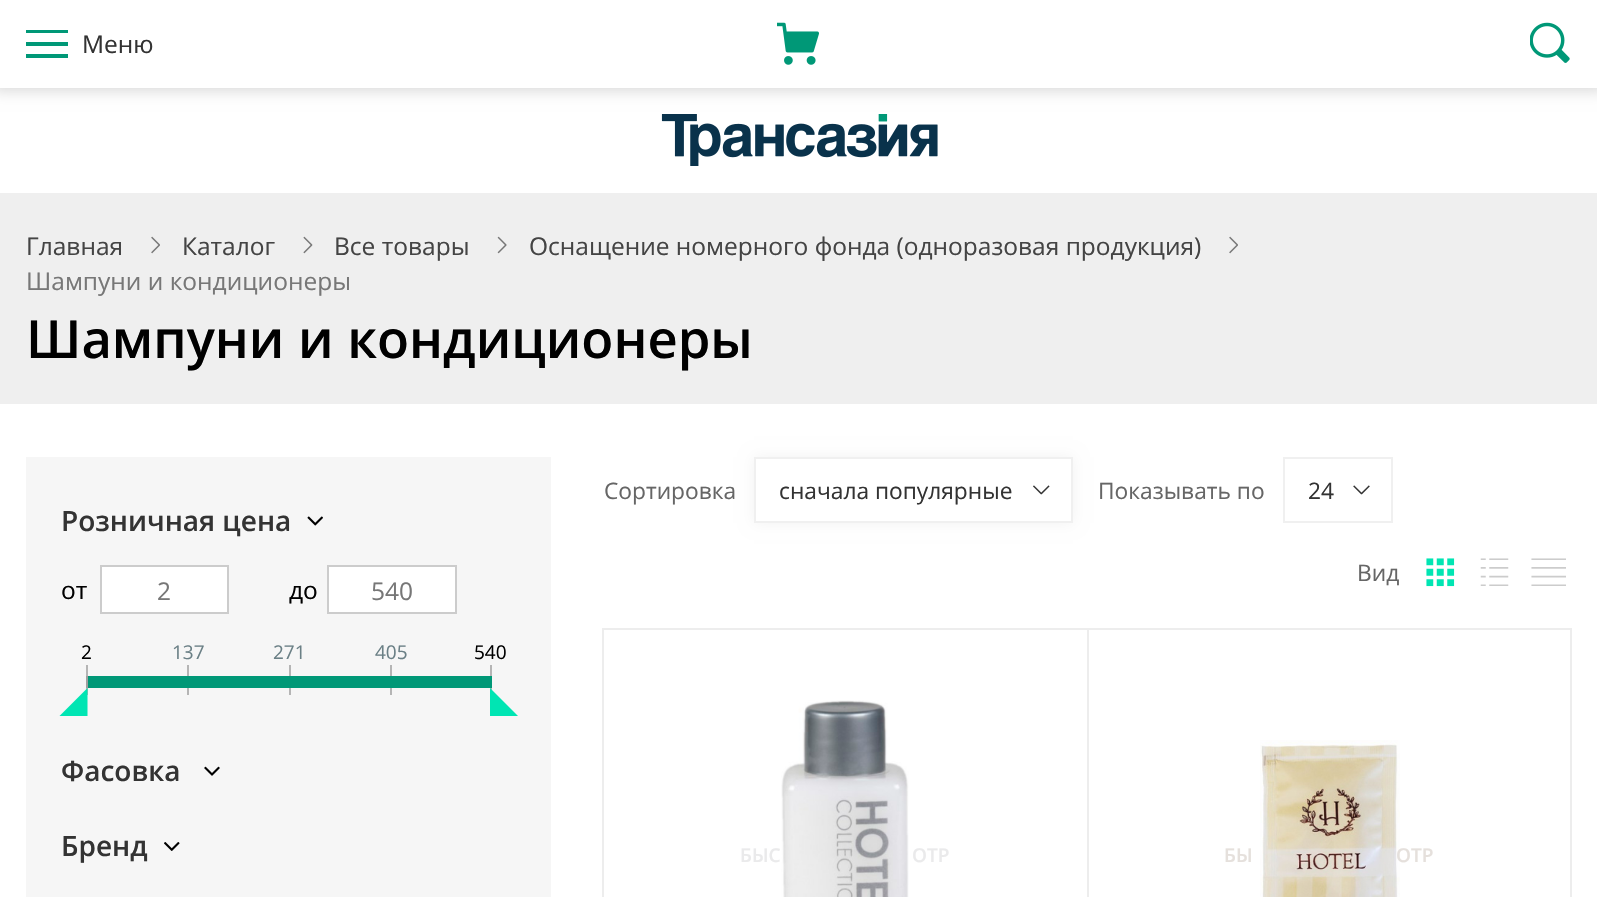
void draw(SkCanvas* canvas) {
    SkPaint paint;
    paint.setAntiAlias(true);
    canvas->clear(0xFFFFFFFF);
    paint.setColor(0x26000000);
    paint.setMaskFilter(SkMaskFilter::MakeBlur(kNormal_SkBlurStyle, 7));
    canvas->drawRect(SkRect::MakeXYWH(-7, -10, 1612, 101), paint);
    paint.setMaskFilter(nullptr);
    paint.setColor(0xFFFFFFFF);
    canvas->drawRect(SkRect::MakeXYWH(0, 0, 1597, 88), paint);
    paint.setColor(0xFF009877);
    canvas->drawPath(SkPathBuilder().moveTo(26, 31).lineTo(26, 33).lineTo(68, 33).lineTo(68, 30).lineTo(26, 30).close().moveTo(26, 44).lineTo(26, 46).lineTo(68, 46).lineTo(68, 42).lineTo(26, 42).close().moveTo(26, 56).lineTo(26, 58).lineTo(68, 58).lineTo(68, 54).lineTo(26, 54).close().detach(), paint);
    SkFont font1(fontMgr->matchFamilyStyle("Open Sans", SkFontStyle::Normal()), 24.5f);
    font1.setSubpixel(true);
    paint.setColor(0xFF333333);
    canvas->drawString("Меню", 82, 53, font1, paint);
    canvas->drawImageRect(SkImages::DeferredFromEncodedData(SkData::MakeFromFileName("img1.png")), SkRect::MakeXYWH(777, 22, 42, 43), SkSamplingOptions());
    canvas->drawImageRect(SkImages::DeferredFromEncodedData(SkData::MakeFromFileName("img2.png")), SkRect::MakeXYWH(1530, 22, 40, 41), SkSamplingOptions());
    canvas->drawImageRect(SkImages::DeferredFromEncodedData(SkData::MakeFromFileName("img3.png")), SkRect::MakeXYWH(661, 114, 277, 52), SkSamplingOptions());
    paint.setColor(0xFFEFEFEF);
    canvas->drawRect(SkRect::MakeXYWH(0, 193, 1597, 211), paint);
    paint.setColor(0xFF444444);
    canvas->drawString("Главная", 26, 255, font1, paint);
    canvas->drawImageRect(SkImages::DeferredFromEncodedData(SkData::MakeFromFileName("img4.png")), SkRect::MakeXYWH(151, 236, 9, 18), SkSamplingOptions());
    canvas->drawString("Каталог", 182, 255, font1, paint);
    canvas->drawImageRect(SkImages::DeferredFromEncodedData(SkData::MakeFromFileName("img5.png")), SkRect::MakeXYWH(303, 236, 10, 18), SkSamplingOptions());
    canvas->drawString("Все товары", 334, 255, font1, paint);
    canvas->drawImageRect(SkImages::DeferredFromEncodedData(SkData::MakeFromFileName("img6.png")), SkRect::MakeXYWH(497, 236, 10, 18), SkSamplingOptions());
    canvas->drawString("Оснащение номерного фонда (одноразовая продукция)", 529, 255, font1, paint);
    canvas->drawImageRect(SkImages::DeferredFromEncodedData(SkData::MakeFromFileName("img4.png")), SkRect::MakeXYWH(1229, 236, 9, 18), SkSamplingOptions());
    paint.setColor(0xFF777777);
    canvas->drawString("Шампуни и кондиционеры", 26, 290, font1, paint);
    SkFont font2(fontMgr->matchFamilyStyle("Open Sans", SkFontStyle(600, SkFontStyle::kNormal_Width, SkFontStyle::kUpright_Slant)), 52.5f);
    font2.setSubpixel(true);
    paint.setColor(0xFF000000);
    canvas->drawString("Шампуни и кондиционеры", 26, 358, font2, paint);
    paint.setColor(0xFFF6F6F6);
    canvas->drawRect(SkRect::MakeXYWH(26, 457, 525, 440), paint);
    SkFont font3(fontMgr->matchFamilyStyle("Open Sans", SkFontStyle(600, SkFontStyle::kNormal_Width, SkFontStyle::kUpright_Slant)), 28);
    font3.setSubpixel(true);
    paint.setColor(0xFF333333);
    canvas->drawString("Розничная цена", 61, 531, font3, paint);
    canvas->drawImageRect(SkImages::DeferredFromEncodedData(SkData::MakeFromFileName("img7.png")), SkRect::MakeXYWH(307, 516, 16, 10), SkSamplingOptions());
    paint.setColor(0xFF000000);
    canvas->drawString("от", 61, 599, font1, paint);
    paint.setColor(0xFFFFFFFF);
    canvas->drawRect(SkRect::MakeXYWH(101, 566, 127, 47), paint);
    paint.setStyle(SkPaint::kStroke_Style);
    paint.setStrokeWidth(2);
    paint.setColor(0xFFCCCCCC);
    canvas->drawRect(SkRect::MakeXYWH(101, 566, 127, 47), paint);
    paint.setStyle(SkPaint::kFill_Style);
    paint.setColor(0xFF777777);
    canvas->drawString("2", 157, 600, font1, paint);
    paint.setColor(0xFF000000);
    canvas->drawString("до", 289, 599, font1, paint);
    paint.setColor(0xFFFFFFFF);
    canvas->drawRect(SkRect::MakeXYWH(328, 566, 128, 47), paint);
    paint.setStyle(SkPaint::kStroke_Style);
    paint.setColor(0xFFCCCCCC);
    canvas->drawRect(SkRect::MakeXYWH(328, 566, 128, 47), paint);
    paint.setStyle(SkPaint::kFill_Style);
    paint.setColor(0xFF777777);
    canvas->drawString("540", 371, 600, font1, paint);
    paint.setColor(0xFFB5B5B5);
    canvas->drawRect(SkRect::MakeXYWH(86, 665, 2, 30), paint);
    SkFont font4(fontMgr->matchFamilyStyle("Open Sans", SkFontStyle::Normal()), 19);
    font4.setSubpixel(true);
    paint.setColor(0xFF000000);
    canvas->drawString("2", 81, 659, font4, paint);
    paint.setColor(0xFFB5B5B5);
    canvas->drawRect(SkRect::MakeXYWH(187, 665, 2, 30), paint);
    paint.setColor(0xFF6B8086);
    canvas->drawString("137", 172, 659, font4, paint);
    paint.setColor(0xFFB5B5B5);
    canvas->drawRect(SkRect::MakeXYWH(289, 665, 2, 30), paint);
    paint.setColor(0xFF6B8086);
    canvas->drawString("271", 273, 659, font4, paint);
    paint.setColor(0xFFB5B5B5);
    canvas->drawRect(SkRect::MakeXYWH(390, 665, 2, 30), paint);
    paint.setColor(0xFF6B8086);
    canvas->drawString("405", 375, 659, font4, paint);
    paint.setColor(0xFFB5B5B5);
    canvas->drawRect(SkRect::MakeXYWH(490, 665, 2, 30), paint);
    paint.setColor(0xFF000000);
    canvas->drawString("540", 474, 659, font4, paint);
    paint.setColor(0xFF9F9F9F);
    canvas->drawRect(SkRect::MakeXYWH(86, 676, 2, 12), paint);
    paint.setColor(0xFF009877);
    canvas->drawRect(SkRect::MakeXYWH(88, 676, 404, 12), paint);
    paint.setColor(0xFF00E5B3);
    canvas->drawPath(SkPathBuilder().moveTo(87.5f, 716).lineTo(59.5f, 716).lineTo(87.5f, 688).close().detach(), paint);
    canvas->drawPath(SkPathBuilder().moveTo(518, 716).lineTo(490, 716).lineTo(490, 688).close().detach(), paint);
    paint.setColor(0xFF333333);
    canvas->drawString("Фасовка", 61, 781, font3, paint);
    canvas->drawImageRect(SkImages::DeferredFromEncodedData(SkData::MakeFromFileName("img8.png")), SkRect::MakeXYWH(204, 766, 16, 10), SkSamplingOptions());
    canvas->drawString("Бренд", 61, 856, font3, paint);
    canvas->drawImageRect(SkImages::DeferredFromEncodedData(SkData::MakeFromFileName("img9.png")), SkRect::MakeXYWH(164, 842, 16, 9), SkSamplingOptions());
    SkFont font5(fontMgr->matchFamilyStyle("Open Sans", SkFontStyle::Normal()), 22.75f);
    font5.setSubpixel(true);
    paint.setColor(0xFF666666);
    canvas->drawString("Сортировка", 604, 499, font5, paint);
    paint.setColor(0x0D000000);
    paint.setMaskFilter(SkMaskFilter::MakeBlur(kNormal_SkBlurStyle, 7));
    canvas->drawRect(SkRect::MakeXYWH(754, 457, 319, 66), paint);
    paint.setMaskFilter(nullptr);
    paint.setColor(0xFFFFFFFF);
    canvas->drawRect(SkRect::MakeXYWH(755, 458, 317, 64), paint);
    paint.setStyle(SkPaint::kStroke_Style);
    paint.setColor(0xFFF0F0F0);
    canvas->drawRect(SkRect::MakeXYWH(755, 458, 317, 64), paint);
    paint.setStyle(SkPaint::kFill_Style);
    paint.setColor(0xFF333333);
    canvas->drawString("сначала популярные", 779, 499, font5, paint);
    canvas->drawImageRect(SkImages::DeferredFromEncodedData(SkData::MakeFromFileName("img10.png")), SkRect::MakeXYWH(1033, 485, 17, 10), SkSamplingOptions());
    paint.setColor(0xFF666666);
    canvas->drawString("Показывать по", 1098, 499, font5, paint);
    paint.setStyle(SkPaint::kStroke_Style);
    paint.setColor(0xFFF0F0F0);
    canvas->drawRect(SkRect::MakeXYWH(1284, 458, 108, 64), paint);
    paint.setStyle(SkPaint::kFill_Style);
    paint.setColor(0xFF333333);
    canvas->drawString("24", 1308, 499, font5, paint);
    canvas->drawImageRect(SkImages::DeferredFromEncodedData(SkData::MakeFromFileName("img11.png")), SkRect::MakeXYWH(1353, 485, 17, 10), SkSamplingOptions());
    paint.setColor(0xFF666666);
    canvas->drawString("Вид", 1357, 581, font5, paint);
    canvas->drawImageRect(SkImages::DeferredFromEncodedData(SkData::MakeFromFileName("img12.png")), SkRect::MakeXYWH(1426, 558, 29, 29), SkSamplingOptions());
    canvas->drawImageRect(SkImages::DeferredFromEncodedData(SkData::MakeFromFileName("img13.png")), SkRect::MakeXYWH(1480, 558, 29, 28), SkSamplingOptions());
    canvas->drawImageRect(SkImages::DeferredFromEncodedData(SkData::MakeFromFileName("img14.png")), SkRect::MakeXYWH(1531, 558, 35, 28), SkSamplingOptions());
    paint.setStyle(SkPaint::kStroke_Style);
    paint.setColor(0xFFEDEDED);
    canvas->drawRect(SkRect::MakeXYWH(603, 629, 485, 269), paint);
    canvas->drawImageRect(SkImages::DeferredFromEncodedData(SkData::MakeFromFileName("img15.png")), SkRect::MakeXYWH(781, 700, 128, 197), SkSamplingOptions());
    SkFont font6(fontMgr->matchFamilyStyle("Open Sans", SkFontStyle(600, SkFontStyle::kNormal_Width, SkFontStyle::kUpright_Slant)), 19);
    font6.setSubpixel(true);
    paint.setStyle(SkPaint::kFill_Style);
    paint.setColor(0xFFEAEAEB);
    canvas->drawString("БЫС", 740, 862, font6, paint);
    canvas->drawString("ОТР", 912, 862, font6, paint);
    paint.setStyle(SkPaint::kStroke_Style);
    paint.setColor(0xFFEDEDED);
    canvas->drawRect(SkRect::MakeXYWH(1088, 629, 483, 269), paint);
    canvas->drawImageRect(SkImages::DeferredFromEncodedData(SkData::MakeFromFileName("img16.png")), SkRect::MakeXYWH(1260, 740, 140, 157), SkSamplingOptions());
    paint.setStyle(SkPaint::kFill_Style);
    paint.setColor(0xFFE5E0DC);
    canvas->drawString("БЫ", 1224, 862, font6, paint);
    canvas->drawString("ОТР", 1396, 862, font6, paint);
}
